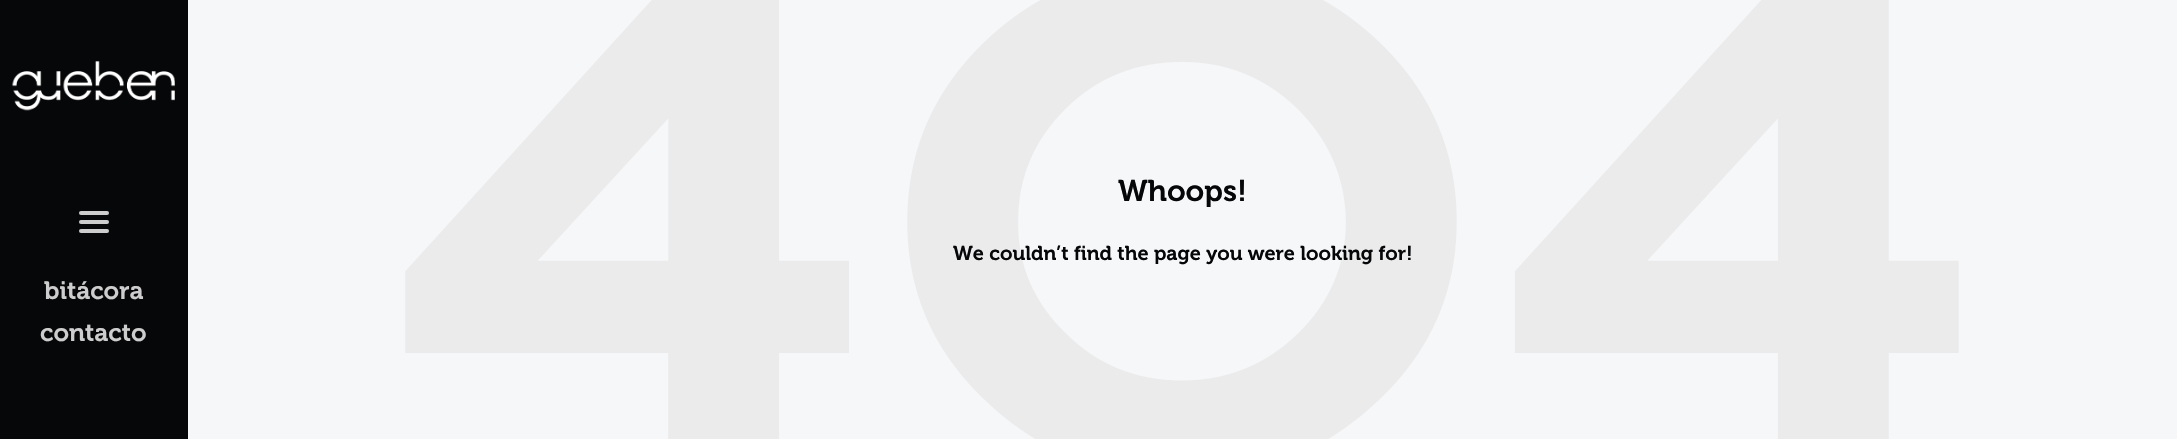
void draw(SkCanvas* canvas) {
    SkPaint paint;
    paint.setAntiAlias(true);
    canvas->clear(0xFFF6F7F8);
    canvas->drawImageRect(SkImages::DeferredFromEncodedData(SkData::MakeFromFileName("img1.png")), SkRect::MakeXYWH(405, 0, 1554, 439), SkSamplingOptions());
    SkFont font1(fontMgr->matchFamilyStyle("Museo", SkFontStyle(600, SkFontStyle::kNormal_Width, SkFontStyle::kUpright_Slant)), 30);
    font1.setSubpixel(true);
    paint.setColor(0xFF060708);
    canvas->drawString("Whoops!", 1118, 201, font1, paint);
    SkFont font2(fontMgr->matchFamilyStyle("Museo", SkFontStyle(600, SkFontStyle::kNormal_Width, SkFontStyle::kUpright_Slant)), 20);
    font2.setSubpixel(true);
    canvas->drawString("We couldn’t find the page you were looking for!", 953, 260, font2, paint);
    canvas->drawRect(SkRect::MakeXYWH(0, 0, 188, 439), paint);
    canvas->drawImageRect(SkImages::DeferredFromEncodedData(SkData::MakeFromFileName("img2.png")), SkRect::MakeXYWH(12, 61, 163, 50), SkSamplingOptions());
    paint.setColor(0xFFCDCDCE);
    canvas->drawRoundRect(SkRect::MakeXYWH(79, 211, 30, 4), 2, 2, paint);
    canvas->drawRoundRect(SkRect::MakeXYWH(79, 220, 30, 4), 2, 2, paint);
    canvas->drawRoundRect(SkRect::MakeXYWH(79, 229, 30, 4), 2, 2, paint);
    SkFont font3(fontMgr->matchFamilyStyle("Museo", SkFontStyle(600, SkFontStyle::kNormal_Width, SkFontStyle::kUpright_Slant)), 25);
    font3.setSubpixel(true);
    canvas->drawString("bitácora", 44, 299, font3, paint);
    canvas->drawString("contacto", 40, 341, font3, paint);
}
